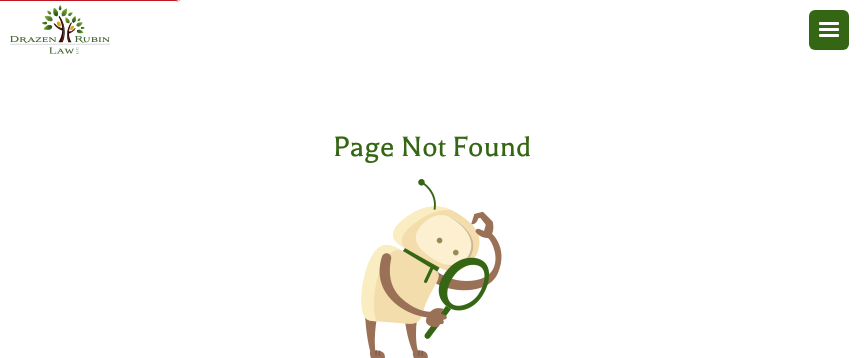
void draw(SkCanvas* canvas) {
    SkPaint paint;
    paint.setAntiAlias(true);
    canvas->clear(0xFFFFFFFF);
    paint.setColor(0xFFBF1722);
    canvas->drawPath(SkPathBuilder().moveTo(0, -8).lineTo(183, -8).lineTo(183, -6).cubicTo(183, -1.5f, 179.5f, 2, 175, 2).lineTo(0, 2).close().detach(), paint);
    paint.setColor(0xFFFFFFFF);
    canvas->drawPath(SkPathBuilder(SkPathFillType::kEvenOdd).moveTo(0, -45).lineTo(183, -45).lineTo(183, -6).cubicTo(183, -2, 179, 2, 175, 2).lineTo(0, 2).close().moveTo(0, -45).lineTo(182, -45).lineTo(182, -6).cubicTo(182, -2, 179, 1, 175, 1).lineTo(0, 1).close().detach(), paint);
    canvas->drawImageRect(SkImages::DeferredFromEncodedData(SkData::MakeFromFileName("img1.png")), SkRect::MakeXYWH(10, 5, 100, 49), SkSamplingOptions());
    paint.setColor(0xFF346613);
    canvas->drawRoundRect(SkRect::MakeXYWH(809, 10, 40, 40), 6, 6, paint);
    canvas->drawImageRect(SkImages::DeferredFromEncodedData(SkData::MakeFromFileName("img2.png")), SkRect::MakeXYWH(819, 22, 20, 15), SkSamplingOptions());
    SkFont font1(fontMgr->matchFamilyStyle("Balthazar", SkFontStyle::Normal()), 32);
    font1.setSubpixel(true);
    canvas->drawString("Page Not Found", 333, 156, font1, paint);
    canvas->drawImageRect(SkImages::DeferredFromEncodedData(SkData::MakeFromFileName("img3.png")), SkRect::MakeXYWH(361, 179, 141, 179), SkSamplingOptions());
}
